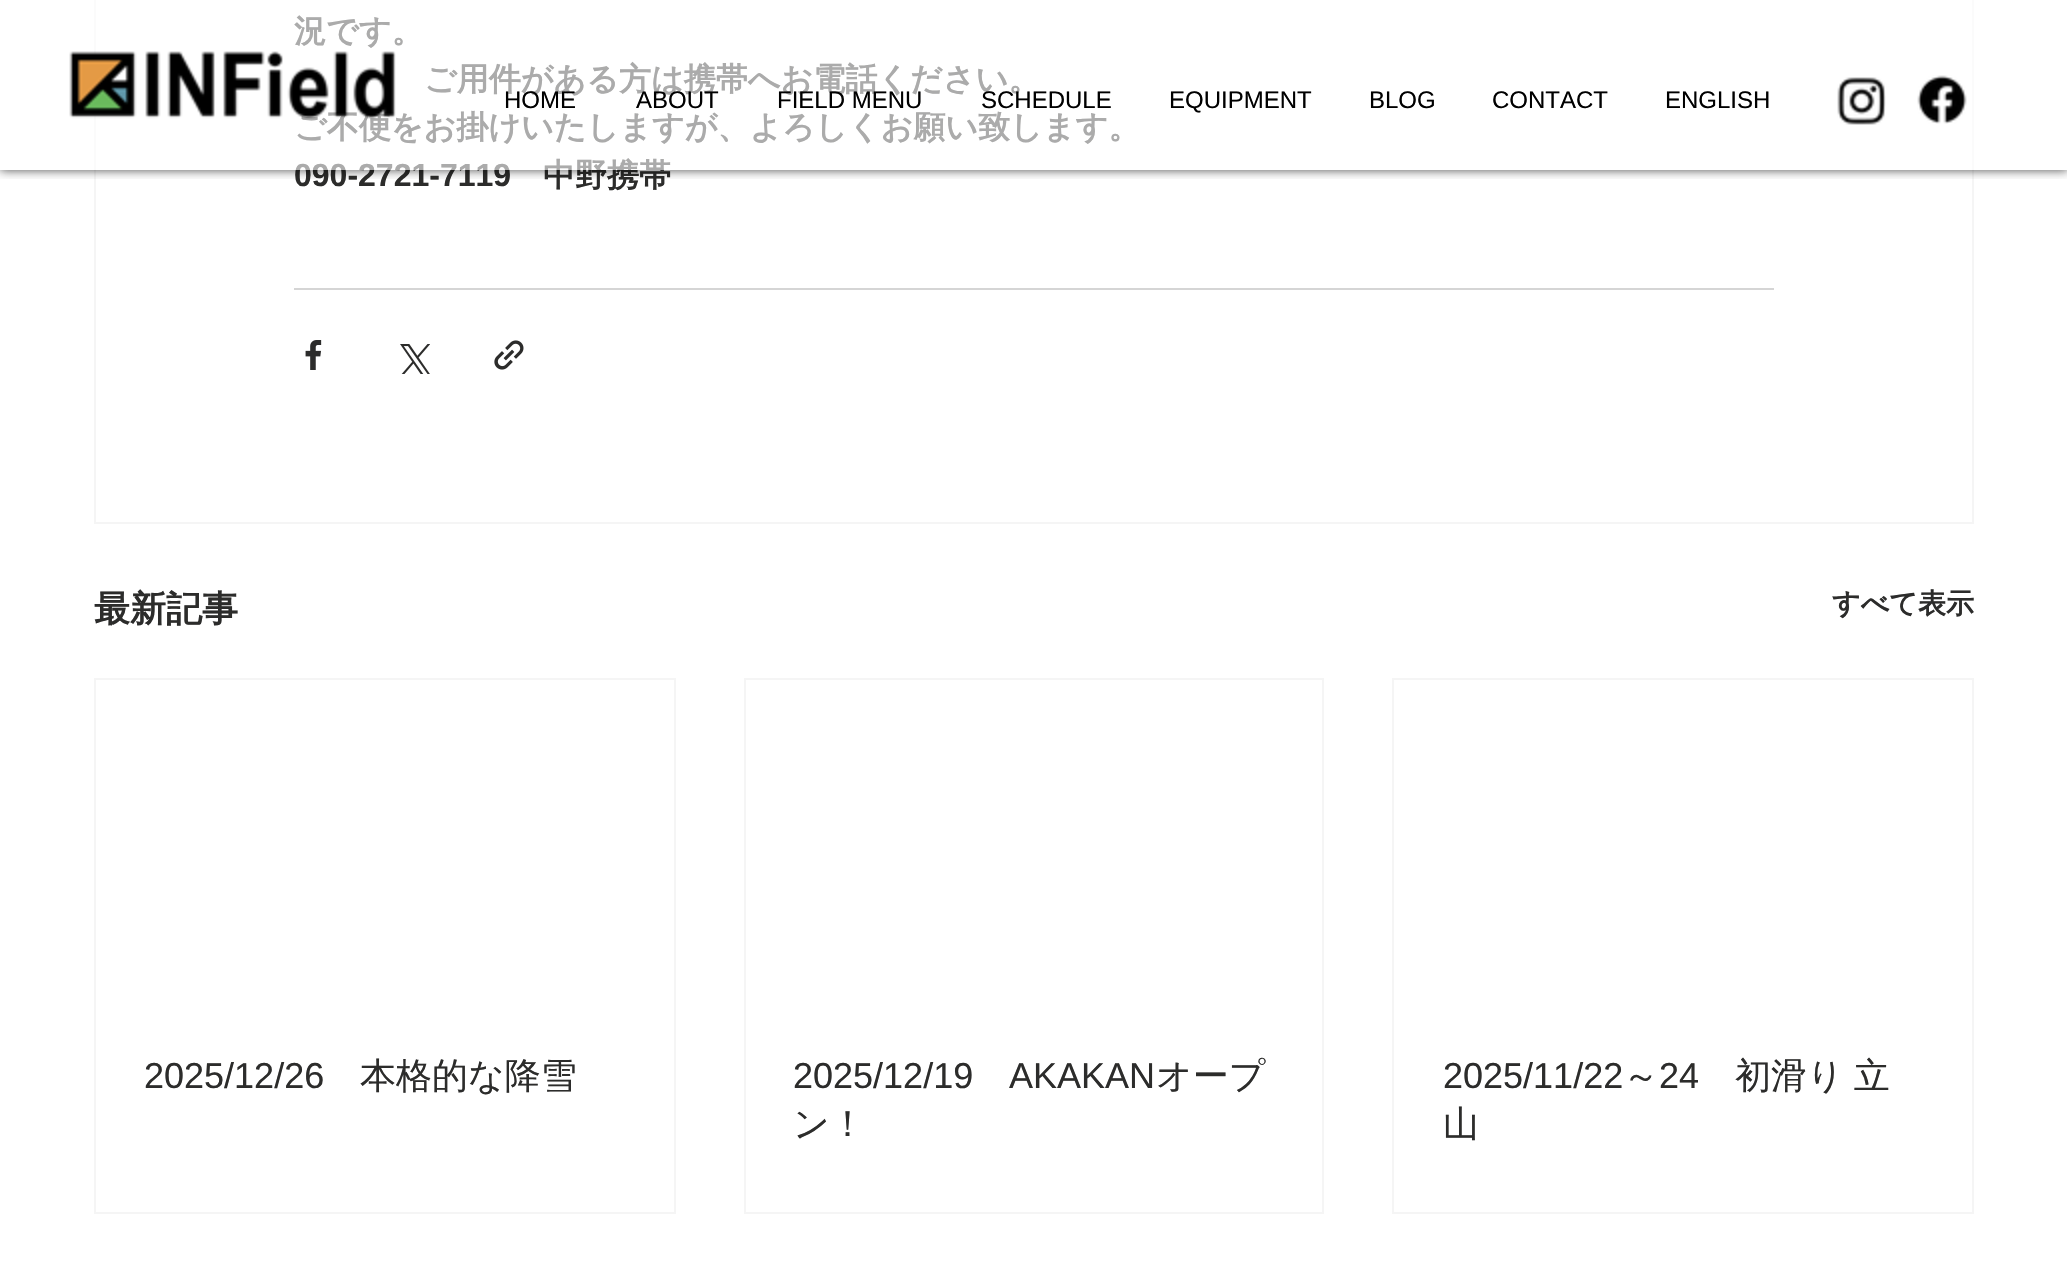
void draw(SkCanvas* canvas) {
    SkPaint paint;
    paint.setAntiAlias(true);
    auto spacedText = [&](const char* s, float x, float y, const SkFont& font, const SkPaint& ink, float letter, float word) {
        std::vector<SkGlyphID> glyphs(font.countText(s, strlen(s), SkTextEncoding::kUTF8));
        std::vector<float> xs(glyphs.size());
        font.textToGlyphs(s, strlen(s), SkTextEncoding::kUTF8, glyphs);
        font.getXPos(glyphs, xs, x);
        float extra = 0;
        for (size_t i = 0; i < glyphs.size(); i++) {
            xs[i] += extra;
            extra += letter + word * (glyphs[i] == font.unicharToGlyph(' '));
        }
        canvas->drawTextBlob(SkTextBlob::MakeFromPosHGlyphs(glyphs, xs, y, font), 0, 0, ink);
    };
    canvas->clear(0xFFFFFFFF);
    paint.setStyle(SkPaint::kStroke_Style);
    paint.setStrokeWidth(2);
    paint.setColor(0xFFF5F5F5);
    canvas->drawRect(SkRect::MakeXYWH(95, -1, 1878, 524), paint);
    SkFont font1(fontMgr->matchFamilyStyle("WenQuanYi Zen Hei", SkFontStyle::Bold()), 32);
    font1.setSubpixel(true);
    paint.setStyle(SkPaint::kFill_Style);
    paint.setColor(0xFF2C2C2B);
    canvas->drawString("況です。", 294, 42, font1, paint);
    canvas->drawString("ご用件がある方は携帯へお電話ください。", 424, 90, font1, paint);
    canvas->drawString("ご不便をお掛けいたしますが、よろしくお願い致します。", 294, 138, font1, paint);
    SkFont font2(fontMgr->matchFamilyStyle("Liberation Sans", SkFontStyle::Bold()), 32);
    font2.setSubpixel(true);
    canvas->drawString("090-2721-7119", 294, 186, font2, paint);
    canvas->drawString("中野携帯", 543, 186, font1, paint);
    paint.setColor(0xFFD5D5D5);
    canvas->drawRect(SkRect::MakeXYWH(294, 288, 1480, 2), paint);
    canvas->drawImageRect(SkImages::DeferredFromEncodedData(SkData::MakeFromFileName("img1.png")), SkRect::MakeXYWH(305, 340, 17, 30), SkSamplingOptions());
    canvas->drawImageRect(SkImages::DeferredFromEncodedData(SkData::MakeFromFileName("img2.png")), SkRect::MakeXYWH(400, 344, 30, 30), SkSamplingOptions());
    canvas->drawImageRect(SkImages::DeferredFromEncodedData(SkData::MakeFromFileName("img3.png")), SkRect::MakeXYWH(494, 340, 30, 30), SkSamplingOptions());
    SkFont font3(fontMgr->matchFamilyStyle("WenQuanYi Zen Hei", SkFontStyle::Bold()), 36);
    font3.setSubpixel(true);
    paint.setColor(0xFF2C2C2B);
    canvas->drawString("最新記事", 94, 621, font3, paint);
    SkFont font4(fontMgr->matchFamilyStyle("WenQuanYi Zen Hei", SkFontStyle::Bold()), 28);
    font4.setSubpixel(true);
    canvas->drawString("すべて表示", 1832, 613, font4, paint);
    paint.setStyle(SkPaint::kStroke_Style);
    paint.setColor(0xFFF5F5F5);
    canvas->drawRect(SkRect::MakeXYWH(95, 679, 580, 534), paint);
    SkFont font5(fontMgr->matchFamilyStyle("Liberation Sans", SkFontStyle::Normal()), 36);
    font5.setSubpixel(true);
    paint.setStyle(SkPaint::kFill_Style);
    paint.setColor(0xFF2C2C2B);
    canvas->drawString("2025/12/26", 144, 1088, font5, paint);
    SkFont font6(fontMgr->matchFamilyStyle("WenQuanYi Zen Hei", SkFontStyle(500, SkFontStyle::kNormal_Width, SkFontStyle::kUpright_Slant)), 36);
    font6.setSubpixel(true);
    canvas->drawString("本格的な降雪", 360, 1088, font6, paint);
    paint.setStyle(SkPaint::kStroke_Style);
    paint.setColor(0xFFF5F5F5);
    canvas->drawRect(SkRect::MakeXYWH(745, 679, 578, 534), paint);
    paint.setStyle(SkPaint::kFill_Style);
    paint.setColor(0xFF2C2C2B);
    canvas->drawString("2025/12/19", 793, 1088, font5, paint);
    canvas->drawString("AKAKAN", 1009, 1088, font5, paint);
    canvas->drawString("オープ", 1156, 1088, font6, paint);
    canvas->drawString("ン！", 793, 1136, font6, paint);
    paint.setStyle(SkPaint::kStroke_Style);
    paint.setColor(0xFFF5F5F5);
    canvas->drawRect(SkRect::MakeXYWH(1393, 679, 580, 534), paint);
    paint.setStyle(SkPaint::kFill_Style);
    paint.setColor(0xFF2C2C2B);
    canvas->drawString("2025/11/22", 1443, 1088, font5, paint);
    canvas->drawString("～", 1623, 1088, font6, paint);
    canvas->drawString("24", 1659, 1088, font5, paint);
    spacedText("初滑り 立", 1735, 1088, font6, paint, 0, -1);
    canvas->drawString("山", 1443, 1136, font6, paint);
    canvas->save();
    canvas->clipRect(SkRect::MakeXYWH(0, 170, 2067, 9));
    paint.setColor(0xB3000000);
    paint.setMaskFilter(SkMaskFilter::MakeBlur(kNormal_SkBlurStyle, 5));
    canvas->drawRect(SkRect::MakeXYWH(0, 0, 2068, 170), paint);
    paint.setMaskFilter(nullptr);
    canvas->restore();
    paint.setColor(0x99FFFFFF);
    canvas->drawRect(SkRect::MakeXYWH(94, 0, 1880, 170), paint);
    canvas->drawImageRect(SkImages::DeferredFromEncodedData(SkData::MakeFromFileName("img4.png")), SkRect::MakeXYWH(69, 51, 327, 68), SkSamplingOptions());
    SkFont font7(fontMgr->matchFamilyStyle("Liberation Sans", SkFontStyle::Normal()), 24);
    font7.setSubpixel(true);
    paint.setColor(0xFF000000);
    canvas->drawString("HOME", 504, 108, font7, paint);
    canvas->drawString("ABOUT", 636, 108, font7, paint);
    canvas->drawString("FIELD MENU", 777, 108, font7, paint);
    canvas->drawString("SCHEDULE", 981, 108, font7, paint);
    canvas->drawString("EQUIPMENT", 1169, 108, font7, paint);
    canvas->drawString("BLOG", 1369, 108, font7, paint);
    canvas->drawString("CONTACT", 1492, 108, font7, paint);
    canvas->drawString("ENGLISH", 1665, 108, font7, paint);
    canvas->drawImageRect(SkImages::DeferredFromEncodedData(SkData::MakeFromFileName("img5.png")), SkRect::MakeXYWH(1837, 77, 49, 48), SkSamplingOptions());
    canvas->drawImageRect(SkImages::DeferredFromEncodedData(SkData::MakeFromFileName("img6.png")), SkRect::MakeXYWH(1917, 75, 50, 49), SkSamplingOptions());
}
